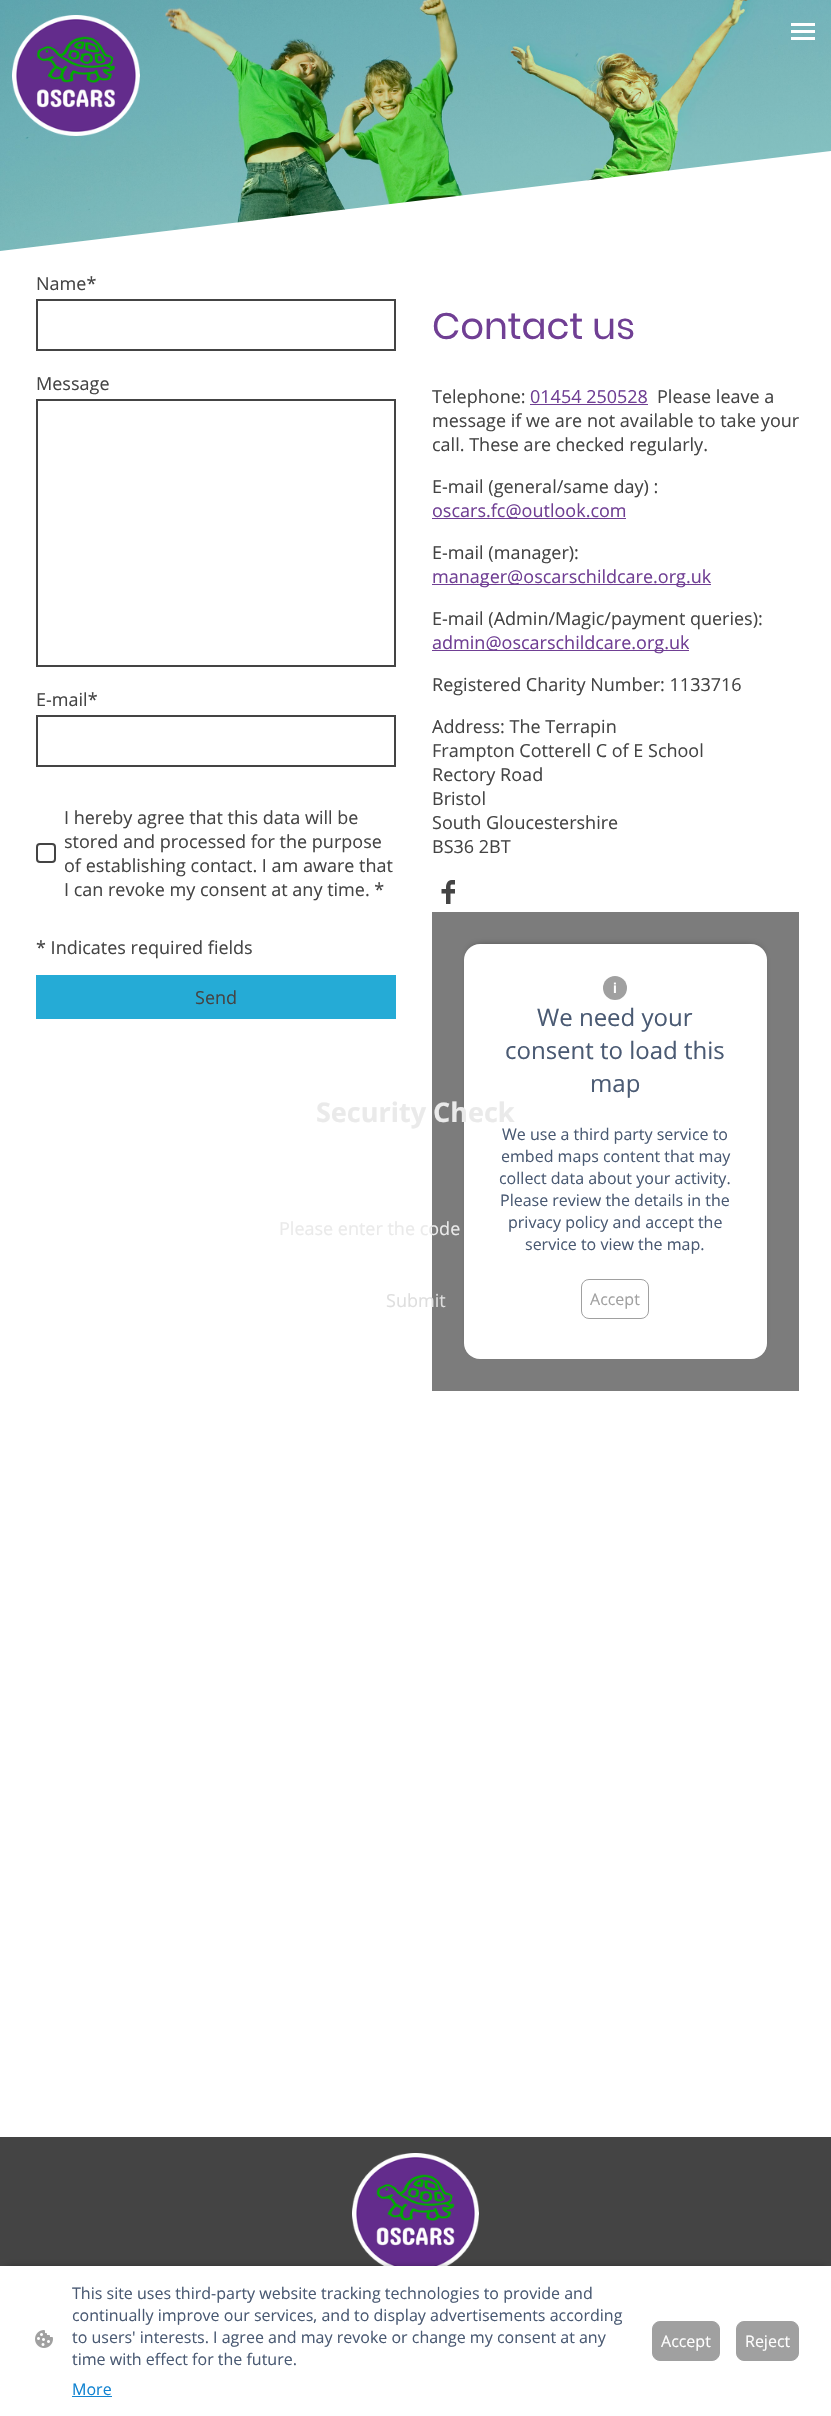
void draw(SkCanvas* canvas) {
    SkPaint paint;
    paint.setAntiAlias(true);
    canvas->clear(0xFFFFFFFF);
    canvas->drawImageRect(SkImages::DeferredFromEncodedData(SkData::MakeFromFileName("img1.png")), SkRect::MakeXYWH(0, 0, 831, 251), SkSamplingOptions());
    canvas->drawImageRect(SkImages::DeferredFromEncodedData(SkData::MakeFromFileName("img2.png")), SkRect::MakeXYWH(12, 15, 128, 121), SkSamplingOptions());
    paint.setColor(0xFFFFFFFF);
    canvas->drawRect(SkRect::MakeXYWH(791, 23, 24, 3), paint);
    canvas->drawRect(SkRect::MakeXYWH(791, 30, 24, 3), paint);
    canvas->drawRect(SkRect::MakeXYWH(791, 37, 24, 3), paint);
    canvas->drawPath(SkPathBuilder().moveTo(0, 251).lineTo(0, 1511).lineTo(831, 1511).lineTo(831, 151).close().detach(), paint);
    SkFont font1(fontMgr->matchFamilyStyle("Open Sans", SkFontStyle::Normal()), 18);
    font1.setSubpixel(true);
    paint.setColor(0xFF444444);
    canvas->drawString("Name*", 36, 290, font1, paint);
    paint.setStyle(SkPaint::kStroke_Style);
    paint.setStrokeWidth(2);
    canvas->drawRect(SkRect::MakeXYWH(37, 300, 358, 50), paint);
    paint.setStyle(SkPaint::kFill_Style);
    canvas->drawString("Message", 36, 390, font1, paint);
    paint.setStyle(SkPaint::kStroke_Style);
    canvas->drawRect(SkRect::MakeXYWH(37, 400, 358, 266), paint);
    paint.setStyle(SkPaint::kFill_Style);
    canvas->drawString("E-mail*", 36, 706, font1, paint);
    paint.setStyle(SkPaint::kStroke_Style);
    canvas->drawRect(SkRect::MakeXYWH(37, 716, 358, 50), paint);
    canvas->drawRoundRect(SkRect::MakeXYWH(37, 844, 18, 18), 3, 3, paint);
    paint.setStyle(SkPaint::kFill_Style);
    canvas->drawString("I hereby agree that this data will be", 64, 824, font1, paint);
    canvas->drawString("stored and processed for the purpose", 64, 848, font1, paint);
    canvas->drawString("of establishing contact. I am aware that", 64, 872, font1, paint);
    canvas->drawString("I can revoke my consent at any time. *", 64, 896, font1, paint);
    canvas->drawString("* Indicates required fields", 36, 954, font1, paint);
    paint.setColor(0xFF25ABD6);
    canvas->drawRect(SkRect::MakeXYWH(36, 975, 360, 44), paint);
    paint.setColor(0xFF444444);
    canvas->drawString("Send", 195, 1004, font1, paint);
    SkFont font2(fontMgr->matchFamilyStyle("Poppins", SkFontStyle::Normal()), 37);
    font2.setSubpixel(true);
    paint.setColor(0xFF703F94);
    canvas->drawString("Contact us", 432, 339, font2, paint);
    paint.setColor(0xFF444444);
    canvas->drawString("Telephone:", 432, 403, font1, paint);
    paint.setColor(0xFF703F94);
    canvas->drawString("01454 250528", 530, 403, font1, paint);
    canvas->drawRect(SkRect::MakeXYWH(530, 404, 118, 1), paint);
    paint.setColor(0xFF444444);
    canvas->drawString("Please leave a", 657, 403, font1, paint);
    canvas->drawString("message if we are not available to take your", 432, 427, font1, paint);
    canvas->drawString("call. These are checked regularly.", 432, 451, font1, paint);
    canvas->drawString("E-mail (general/same day) :", 432, 493, font1, paint);
    paint.setColor(0xFF703F94);
    canvas->drawRect(SkRect::MakeXYWH(432, 518, 194, 1), paint);
    canvas->drawString("oscars.fc@outlook.com", 432, 517, font1, paint);
    paint.setColor(0xFF444444);
    canvas->drawString("E-mail (manager):", 432, 559, font1, paint);
    paint.setColor(0xFF703F94);
    canvas->drawRect(SkRect::MakeXYWH(432, 584, 279, 1), paint);
    canvas->drawString("manager@oscarschildcare.org.uk", 432, 583, font1, paint);
    paint.setColor(0xFF444444);
    canvas->drawString("E-mail (Admin/Magic/payment queries):", 432, 625, font1, paint);
    paint.setColor(0xFF703F94);
    canvas->drawRect(SkRect::MakeXYWH(432, 650, 257, 1), paint);
    canvas->drawString("admin@oscarschildcare.org.uk", 432, 649, font1, paint);
    paint.setColor(0xFF444444);
    canvas->drawString("Registered Charity Number: 1133716", 432, 691, font1, paint);
    canvas->drawString("Address: The Terrapin", 432, 733, font1, paint);
    canvas->drawString("Frampton Cotterell C of E School", 432, 757, font1, paint);
    canvas->drawString("Rectory Road", 432, 781, font1, paint);
    canvas->drawString("Bristol", 432, 805, font1, paint);
    canvas->drawString("South Gloucestershire", 432, 829, font1, paint);
    canvas->drawString("BS36 2BT", 432, 853, font1, paint);
    canvas->drawImageRect(SkImages::DeferredFromEncodedData(SkData::MakeFromFileName("img3.png")), SkRect::MakeXYWH(441, 880, 14, 24), SkSamplingOptions());
    paint.setColor(0xFF7C7C7C);
    canvas->drawRect(SkRect::MakeXYWH(432, 912, 367, 479), paint);
    paint.setColor(0xA1000000);
    paint.setMaskFilter(SkMaskFilter::MakeBlur(kNormal_SkBlurStyle, 4));
    canvas->drawRoundRect(SkRect::MakeXYWH(470, 947, 291, 403), 10, 10, paint);
    paint.setMaskFilter(nullptr);
    paint.setColor(0xFFFFFFFF);
    canvas->drawRoundRect(SkRect::MakeXYWH(464, 944, 303, 415), 16, 16, paint);
    paint.setColor(0xFFA0A0A0);
    canvas->drawCircle(615, 988, 12, paint);
    SkFont font3(fontMgr->matchFamilyStyle("Liberation Sans", SkFontStyle::Bold()), 14);
    font3.setSubpixel(true);
    paint.setColor(0xFFFFFFFF);
    canvas->drawString("i", 613, 993, font3, paint);
    SkFont font4(fontMgr->matchFamilyStyle("Open Sans", SkFontStyle::Normal()), 24);
    font4.setSubpixel(true);
    paint.setColor(0xFF4A5A73);
    canvas->drawString("We need your", 537, 1026, font4, paint);
    canvas->drawString("consent to load this", 505, 1059, font4, paint);
    canvas->drawString("map", 590, 1092, font4, paint);
    SkFont font5(fontMgr->matchFamilyStyle("Open Sans", SkFontStyle::Normal()), 16);
    font5.setSubpixel(true);
    canvas->drawString("We use a third party service to", 502, 1140, font5, paint);
    canvas->drawString("embed maps content that may", 501, 1162, font5, paint);
    canvas->drawString("collect data about your activity.", 499, 1184, font5, paint);
    canvas->drawString("Please review the details in the", 500, 1206, font5, paint);
    canvas->drawString("privacy policy and accept the", 508, 1228, font5, paint);
    canvas->drawString("service to view the map.", 525, 1250, font5, paint);
    paint.setStyle(SkPaint::kStroke_Style);
    paint.setStrokeWidth(1);
    paint.setColor(0xFFA0A0A0);
    canvas->drawRoundRect(SkRect::MakeXYWH(581.5f, 1279.5f, 67, 39), 7.5f, 7.5f, paint);
    paint.setStyle(SkPaint::kFill_Style);
    canvas->drawString("Accept", 590, 1305, font5, paint);
    canvas->save();
    canvas->clipRect(SkRect::MakeXYWH(0, 2137, 831, 279));
    paint.setColor(0xFF444444);
    canvas->drawPath(SkPathBuilder().moveTo(0, 2137).lineTo(0, 2416).lineTo(831, 2416).lineTo(831, 2037).close().detach(), paint);
    canvas->restore();
    canvas->drawImageRect(SkImages::DeferredFromEncodedData(SkData::MakeFromFileName("img4.png")), SkRect::MakeXYWH(352, 2153, 127, 113), SkSamplingOptions());
    SkFont font6(fontMgr->matchFamilyStyle("Open Sans", SkFontStyle::Bold()), 27);
    font6.setSubpixel(true);
    paint.setColor(0xFFEAEAEA);
    canvas->drawString("Security Check", 316, 1122, font6, paint);
    canvas->drawString("Please enter the code", 279, 1235, font1, paint);
    paint.setColor(0xFFDEDEDE);
    canvas->drawString("Submit", 386, 1307, font1, paint);
    paint.setColor(0xA1000000);
    paint.setMaskFilter(SkMaskFilter::MakeBlur(kNormal_SkBlurStyle, 4));
    canvas->drawRect(SkRect::MakeXYWH(6, 2269, 819, 138), paint);
    paint.setMaskFilter(nullptr);
    paint.setColor(0xFFFFFFFF);
    canvas->drawRect(SkRect::MakeXYWH(0, 2266, 831, 150), paint);
    canvas->drawImageRect(SkImages::DeferredFromEncodedData(SkData::MakeFromFileName("img5.png")), SkRect::MakeXYWH(35, 2330, 18, 18), SkSamplingOptions());
    paint.setColor(0xFF4A5A73);
    canvas->drawString("This site uses third-party website tracking technologies to provide and", 72, 2299, font5, paint);
    canvas->drawString("continually improve our services, and to display advertisements according", 72, 2321, font5, paint);
    canvas->drawString("to users' interests. I agree and may revoke or change my consent at any", 72, 2343, font5, paint);
    canvas->drawString("time with effect for the future.", 72, 2365, font5, paint);
    paint.setColor(0xFF1183D1);
    canvas->drawString("More", 72, 2395, font5, paint);
    canvas->drawRect(SkRect::MakeXYWH(72, 2396, 40, 1), paint);
    paint.setColor(0xFFA0A0A0);
    canvas->drawRoundRect(SkRect::MakeXYWH(652.5f, 2321.5f, 67, 39), 7.5f, 7.5f, paint);
    paint.setStyle(SkPaint::kStroke_Style);
    canvas->drawRoundRect(SkRect::MakeXYWH(652.5f, 2321.5f, 67, 39), 7.5f, 7.5f, paint);
    paint.setStyle(SkPaint::kFill_Style);
    paint.setColor(0xFFFFFFFF);
    canvas->drawString("Accept", 661, 2347, font5, paint);
    paint.setColor(0xFFA0A0A0);
    canvas->drawRoundRect(SkRect::MakeXYWH(736.5f, 2321.5f, 62, 39), 7.5f, 7.5f, paint);
    paint.setStyle(SkPaint::kStroke_Style);
    canvas->drawRoundRect(SkRect::MakeXYWH(736.5f, 2321.5f, 62, 39), 7.5f, 7.5f, paint);
    paint.setStyle(SkPaint::kFill_Style);
    paint.setColor(0xFFFFFFFF);
    canvas->drawString("Reject", 745, 2347, font5, paint);
}
